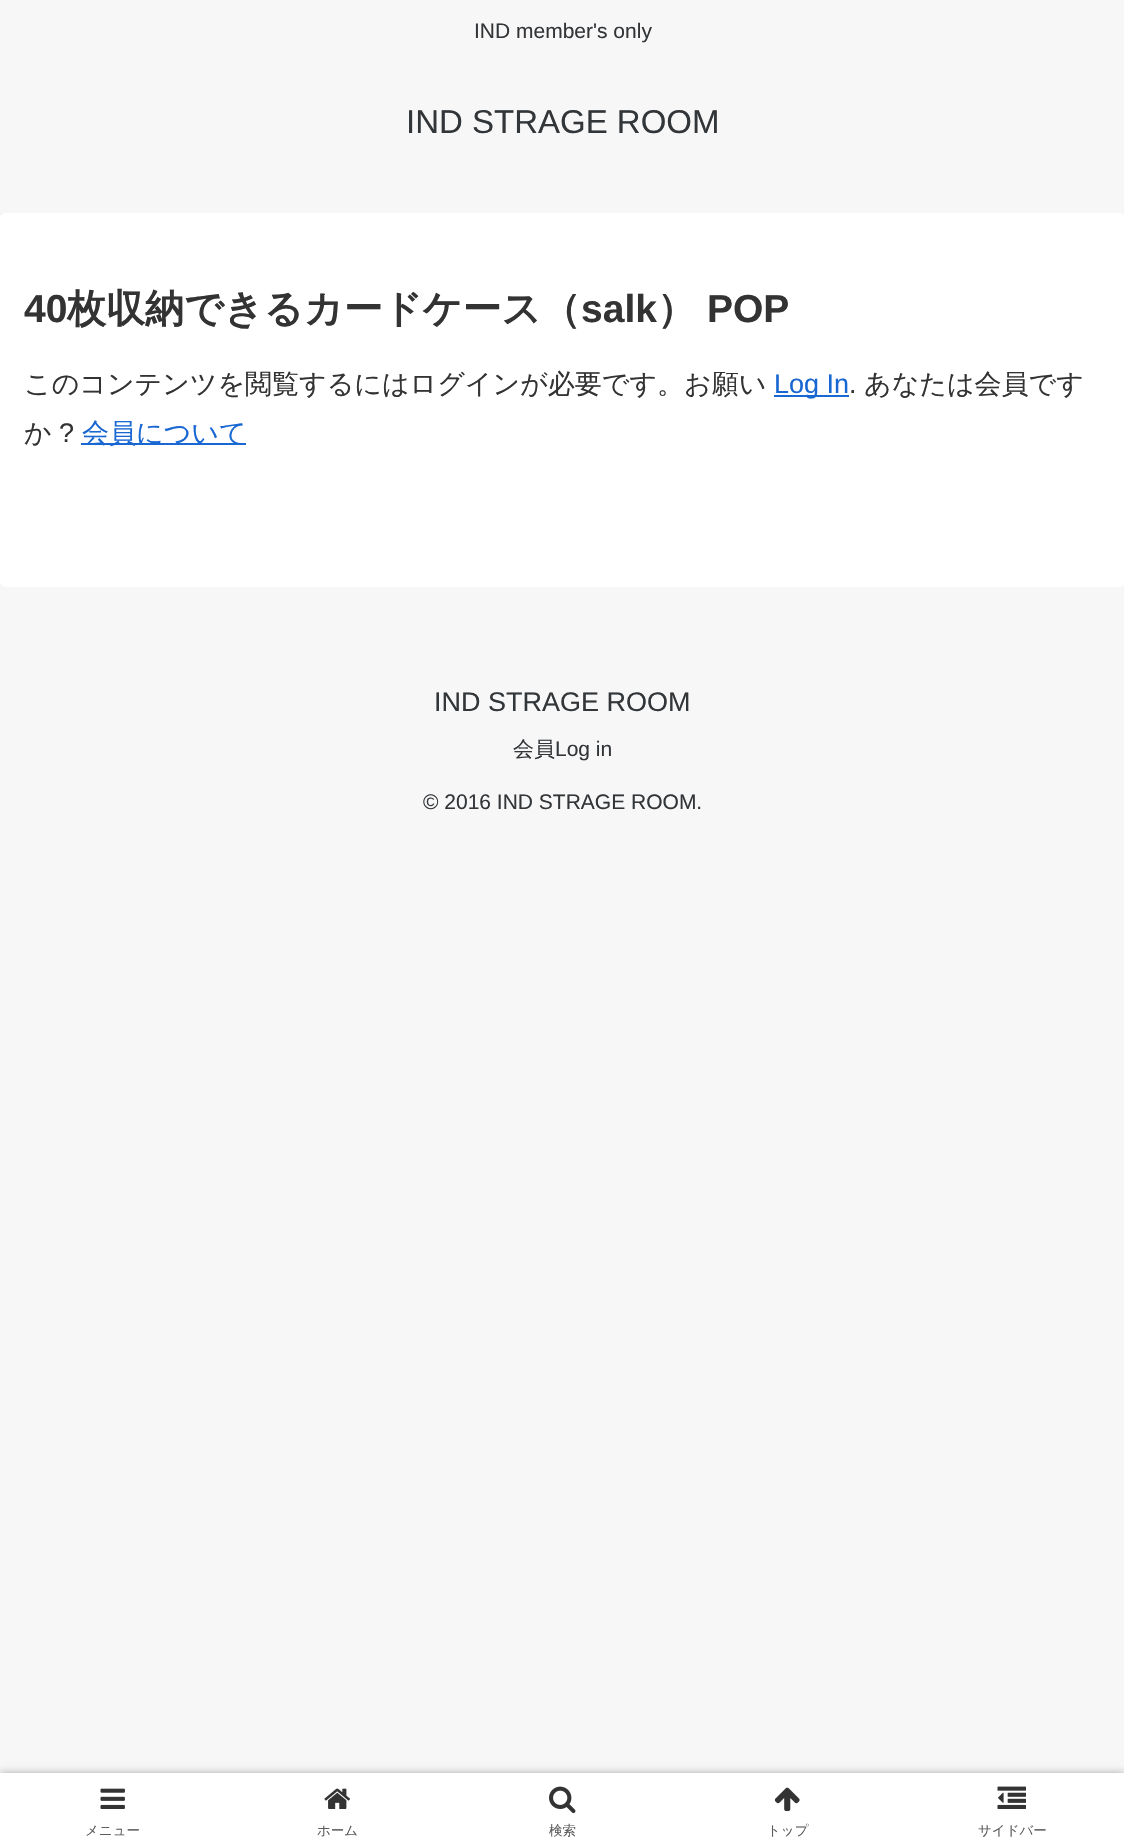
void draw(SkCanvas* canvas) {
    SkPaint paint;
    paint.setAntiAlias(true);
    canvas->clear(0xFFF7F7F7);
    SkFont font1(fontMgr->matchFamilyStyle("Liberation Sans", SkFontStyle::Normal()), 21);
    font1.setSubpixel(true);
    paint.setColor(0xFF333639);
    canvas->drawString("IND member's only", 474, 38, font1, paint);
    SkFont font2(fontMgr->matchFamilyStyle("Liberation Sans", SkFontStyle::Normal()), 33);
    font2.setSubpixel(true);
    canvas->drawString("IND STRAGE ROOM", 406, 133, font2, paint);
    paint.setColor(0xFFFFFFFF);
    canvas->drawRoundRect(SkRect::MakeXYWH(0, 213, 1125, 374), 6, 6, paint);
    SkFont font3(fontMgr->matchFamilyStyle("Liberation Sans", SkFontStyle::Bold()), 39);
    font3.setSubpixel(true);
    paint.setColor(0xFF333333);
    canvas->drawString("40", 24, 322, font3, paint);
    SkFont font4(fontMgr->matchFamilyStyle("WenQuanYi Zen Hei", SkFontStyle::Bold()), 39);
    font4.setSubpixel(true);
    canvas->drawString("枚収納できるカードケース（", 67, 322, font4, paint);
    canvas->drawString("salk", 581, 322, font3, paint);
    canvas->drawString("）", 657, 322, font4, paint);
    canvas->drawString("POP", 707, 322, font3, paint);
    SkFont font5(fontMgr->matchFamilyStyle("WenQuanYi Zen Hei", SkFontStyle(500, SkFontStyle::kNormal_Width, SkFontStyle::kUpright_Slant)), 27);
    font5.setSubpixel(true);
    canvas->drawString("このコンテンツを閲覧するにはログインが必要です。お願い", 24, 393, font5, paint);
    paint.setColor(0xFF1967D2);
    canvas->drawRect(SkRect::MakeXYWH(774, 395, 75, 2), paint);
    SkFont font6(fontMgr->matchFamilyStyle("Liberation Sans", SkFontStyle::Normal()), 27);
    font6.setSubpixel(true);
    canvas->drawString("Log In", 774, 393, font6, paint);
    paint.setColor(0xFF333333);
    canvas->drawString(".", 849, 393, font6, paint);
    canvas->drawString("あなたは会員です", 864, 393, font5, paint);
    canvas->drawString("か", 24, 442, font5, paint);
    canvas->drawString("?", 59, 442, font6, paint);
    paint.setColor(0xFF1967D2);
    canvas->drawRect(SkRect::MakeXYWH(81, 443, 165, 2), paint);
    canvas->drawString("会員について", 82, 442, font5, paint);
    paint.setColor(0xFF333639);
    canvas->drawString("IND STRAGE ROOM", 434, 711, font6, paint);
    SkFont font7(fontMgr->matchFamilyStyle("WenQuanYi Zen Hei", SkFontStyle(500, SkFontStyle::kNormal_Width, SkFontStyle::kUpright_Slant)), 21);
    font7.setSubpixel(true);
    canvas->drawString("会員", 513, 756, font7, paint);
    canvas->drawString("Log in", 555, 756, font1, paint);
    canvas->drawString("© 2016 IND STRAGE ROOM.", 423, 809, font1, paint);
    paint.setColor(0xFFA9A9A9);
    paint.setMaskFilter(SkMaskFilter::MakeBlur(kNormal_SkBlurStyle, 4));
    canvas->drawRect(SkRect::MakeXYWH(0, 1773, 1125, 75), paint);
    paint.setMaskFilter(nullptr);
    paint.setColor(0xFFFFFFFF);
    canvas->drawRect(SkRect::MakeXYWH(0, 1773, 1124, 74), paint);
    canvas->drawImageRect(SkImages::DeferredFromEncodedData(SkData::MakeFromFileName("img1.png")), SkRect::MakeXYWH(100, 1788, 25, 21), SkSamplingOptions());
    SkFont font8(fontMgr->matchFamilyStyle("WenQuanYi Zen Hei", SkFontStyle(500, SkFontStyle::kNormal_Width, SkFontStyle::kUpright_Slant)), 13.5f);
    font8.setSubpixel(true);
    paint.setColor(0xFF5C5C5C);
    canvas->drawString("メニュー", 85, 1835, font8, paint);
    canvas->drawImageRect(SkImages::DeferredFromEncodedData(SkData::MakeFromFileName("img2.png")), SkRect::MakeXYWH(324, 1788, 26, 21), SkSamplingOptions());
    canvas->drawString("ホーム", 317, 1835, font8, paint);
    canvas->drawImageRect(SkImages::DeferredFromEncodedData(SkData::MakeFromFileName("img3.png")), SkRect::MakeXYWH(549, 1786, 27, 28), SkSamplingOptions());
    canvas->drawString("検索", 549, 1835, font8, paint);
    canvas->drawImageRect(SkImages::DeferredFromEncodedData(SkData::MakeFromFileName("img4.png")), SkRect::MakeXYWH(774, 1787, 26, 25), SkSamplingOptions());
    canvas->drawString("トップ", 767, 1835, font8, paint);
    canvas->drawImageRect(SkImages::DeferredFromEncodedData(SkData::MakeFromFileName("img5.png")), SkRect::MakeXYWH(997, 1786, 29, 23), SkSamplingOptions());
    canvas->drawString("サイドバー", 978, 1835, font8, paint);
}
